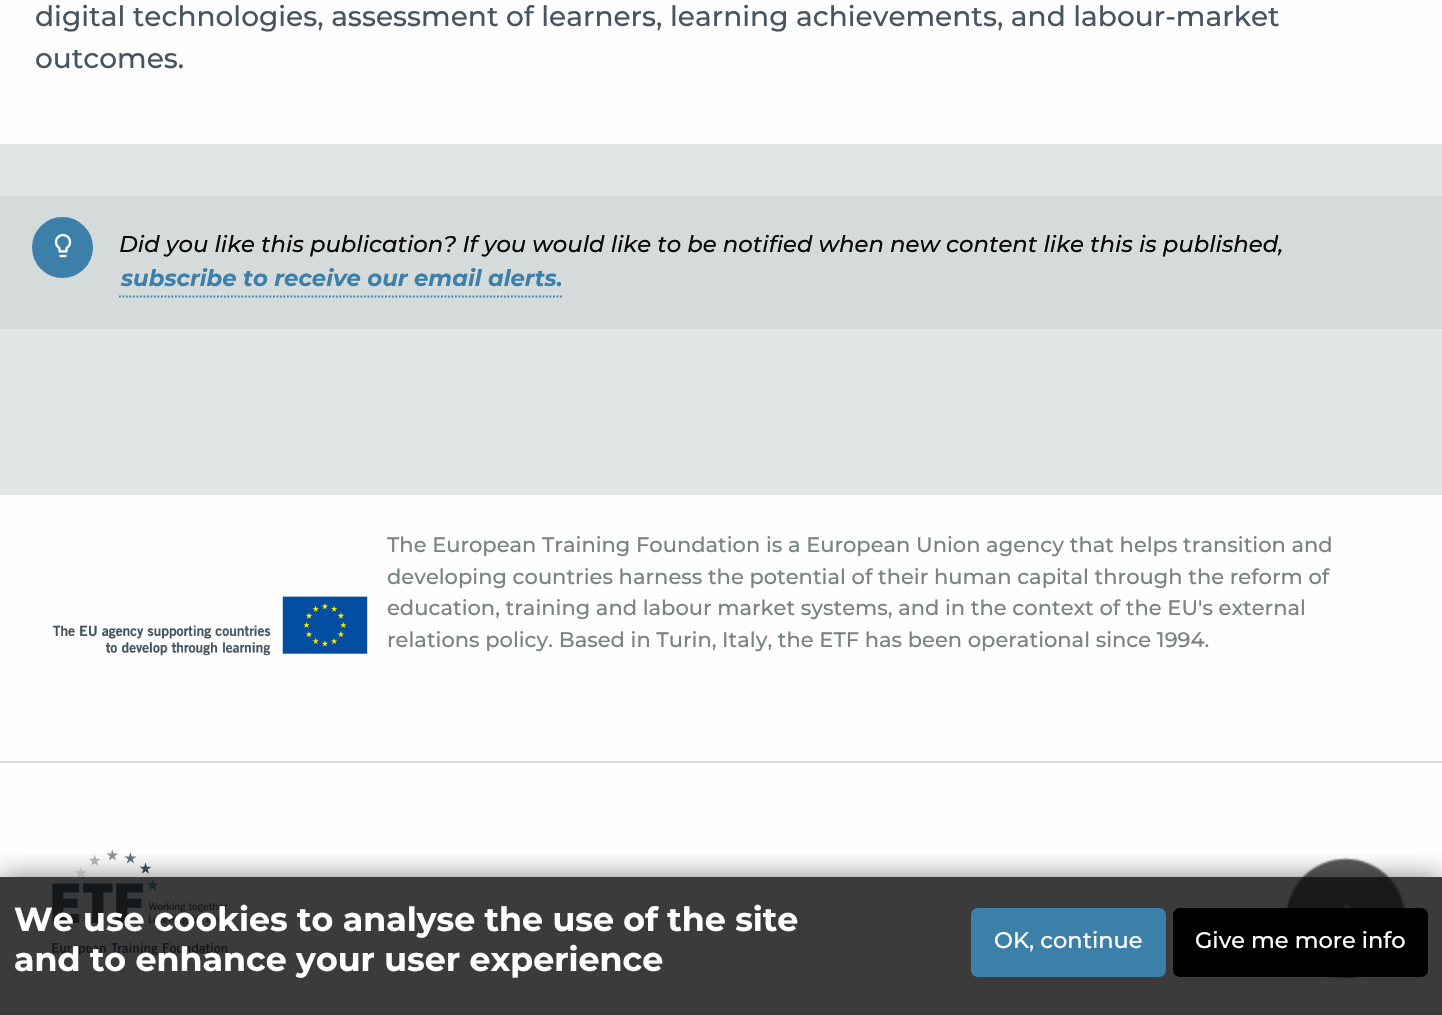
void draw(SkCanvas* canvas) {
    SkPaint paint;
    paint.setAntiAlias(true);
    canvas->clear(0xFFE3E6E7);
    paint.setColor(0xFFFEFEFE);
    canvas->drawRect(SkRect::MakeXYWH(0, 0, 1442, 144), paint);
    SkFont font1(fontMgr->matchFamilyStyle("Montserrat", SkFontStyle(500, SkFontStyle::kNormal_Width, SkFontStyle::kUpright_Slant)), 28);
    font1.setSubpixel(true);
    paint.setColor(0xFF475562);
    canvas->drawString("digital technologies, assessment of learners, learning achievements, and labour-market", 35, 26, font1, paint);
    canvas->drawString("outcomes.", 35, 68, font1, paint);
    paint.setColor(0xFFD5DADB);
    canvas->drawRect(SkRect::MakeXYWH(0, 196, 1442, 133), paint);
    paint.setColor(0xFF3C80AA);
    canvas->drawCircle(62.5f, 247.5f, 30.5f, paint);
    canvas->drawImageRect(SkImages::DeferredFromEncodedData(SkData::MakeFromFileName("img1.png")), SkRect::MakeXYWH(54, 233, 18, 25), SkSamplingOptions());
    SkFont font2(fontMgr->matchFamilyStyle("Montserrat", SkFontStyle(500, SkFontStyle::kNormal_Width, SkFontStyle::kItalic_Slant)), 22.75f);
    font2.setSubpixel(true);
    paint.setColor(0xFF0A0A0A);
    canvas->drawString("Did you like this publication? If you would like to be notified when new content like this is published,", 119, 252, font2, paint);
    paint.setStyle(SkPaint::kStroke_Style);
    paint.setStrokeWidth(1.8f);
    paint.setColor(0xFF3C80AA);
    paint.setPathEffect(SkDashPathEffect::Make({{1.75f, 1.75f}}, 0));
    canvas->drawPath(SkPathBuilder().moveTo(119, 296.5f).lineTo(563.5f, 296.5f).detach(), paint);
    paint.setPathEffect(nullptr);
    SkFont font3(fontMgr->matchFamilyStyle("Montserrat", SkFontStyle::BoldItalic()), 22.75f);
    font3.setSubpixel(true);
    paint.setStyle(SkPaint::kFill_Style);
    canvas->drawString("subscribe to receive our email alerts.", 121, 286, font3, paint);
    paint.setColor(0xFFFEFEFE);
    canvas->drawRect(SkRect::MakeXYWH(0, 495, 1442, 518), paint);
    canvas->drawImageRect(SkImages::DeferredFromEncodedData(SkData::MakeFromFileName("img2.png")), SkRect::MakeXYWH(52, 596, 316, 60), SkSamplingOptions());
    SkFont font4(fontMgr->matchFamilyStyle("Montserrat", SkFontStyle(500, SkFontStyle::kNormal_Width, SkFontStyle::kUpright_Slant)), 21);
    font4.setSubpixel(true);
    paint.setColor(0xFF78847D);
    canvas->drawString("The European Training Foundation is a European Union agency that helps transition and", 387, 552, font4, paint);
    canvas->drawString("developing countries harness the potential of their human capital through the reform of", 387, 584, font4, paint);
    canvas->drawString("education, training and labour market systems, and in the context of the EU's external", 387, 615, font4, paint);
    canvas->drawString("relations policy. Based in Turin, Italy, the ETF has been operational since 1994.", 387, 647, font4, paint);
    paint.setColor(0xFFDBDCE1);
    canvas->drawRect(SkRect::MakeXYWH(0, 761, 1442, 2), paint);
    canvas->drawImageRect(SkImages::DeferredFromEncodedData(SkData::MakeFromFileName("img3.png")), SkRect::MakeXYWH(52, 849, 176, 107), SkSamplingOptions());
    canvas->drawImageRect(SkImages::DeferredFromEncodedData(SkData::MakeFromFileName("img4.png")), SkRect::MakeXYWH(1285, 857, 121, 123), SkSamplingOptions());
    canvas->save();
    canvas->clipRect(SkRect::MakeXYWH(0, 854, 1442, 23));
    paint.setColor(0x800A0A0A);
    paint.setMaskFilter(SkMaskFilter::MakeBlur(kNormal_SkBlurStyle, 13));
    canvas->drawRect(SkRect::MakeXYWH(0, 877, 1442, 138), paint);
    paint.setMaskFilter(nullptr);
    canvas->restore();
    paint.setColor(0xCC0A0A0A);
    canvas->drawRect(SkRect::MakeXYWH(0, 877, 1442, 138), paint);
    SkFont font5(fontMgr->matchFamilyStyle("Montserrat", SkFontStyle::Bold()), 33.25f);
    font5.setSubpixel(true);
    paint.setColor(0xFFFFFFFF);
    canvas->drawString("We use cookies to analyse the use of the site", 14, 931, font5, paint);
    canvas->drawString("and to enhance your user experience", 14, 971, font5, paint);
    paint.setColor(0xFF3C80AA);
    canvas->drawRoundRect(SkRect::MakeXYWH(971, 908, 195, 69), 7, 7, paint);
    SkFont font6(fontMgr->matchFamilyStyle("Montserrat", SkFontStyle(500, SkFontStyle::kNormal_Width, SkFontStyle::kUpright_Slant)), 22.5f);
    font6.setSubpixel(true);
    paint.setColor(0xFFFFFFFF);
    canvas->drawString("OK, continue", 994, 948, font6, paint);
    paint.setColor(0xFF000000);
    canvas->drawRoundRect(SkRect::MakeXYWH(1173, 908, 255, 69), 7, 7, paint);
    paint.setColor(0xFFFFFFFF);
    canvas->drawString("Give me more info", 1195, 948, font6, paint);
}
